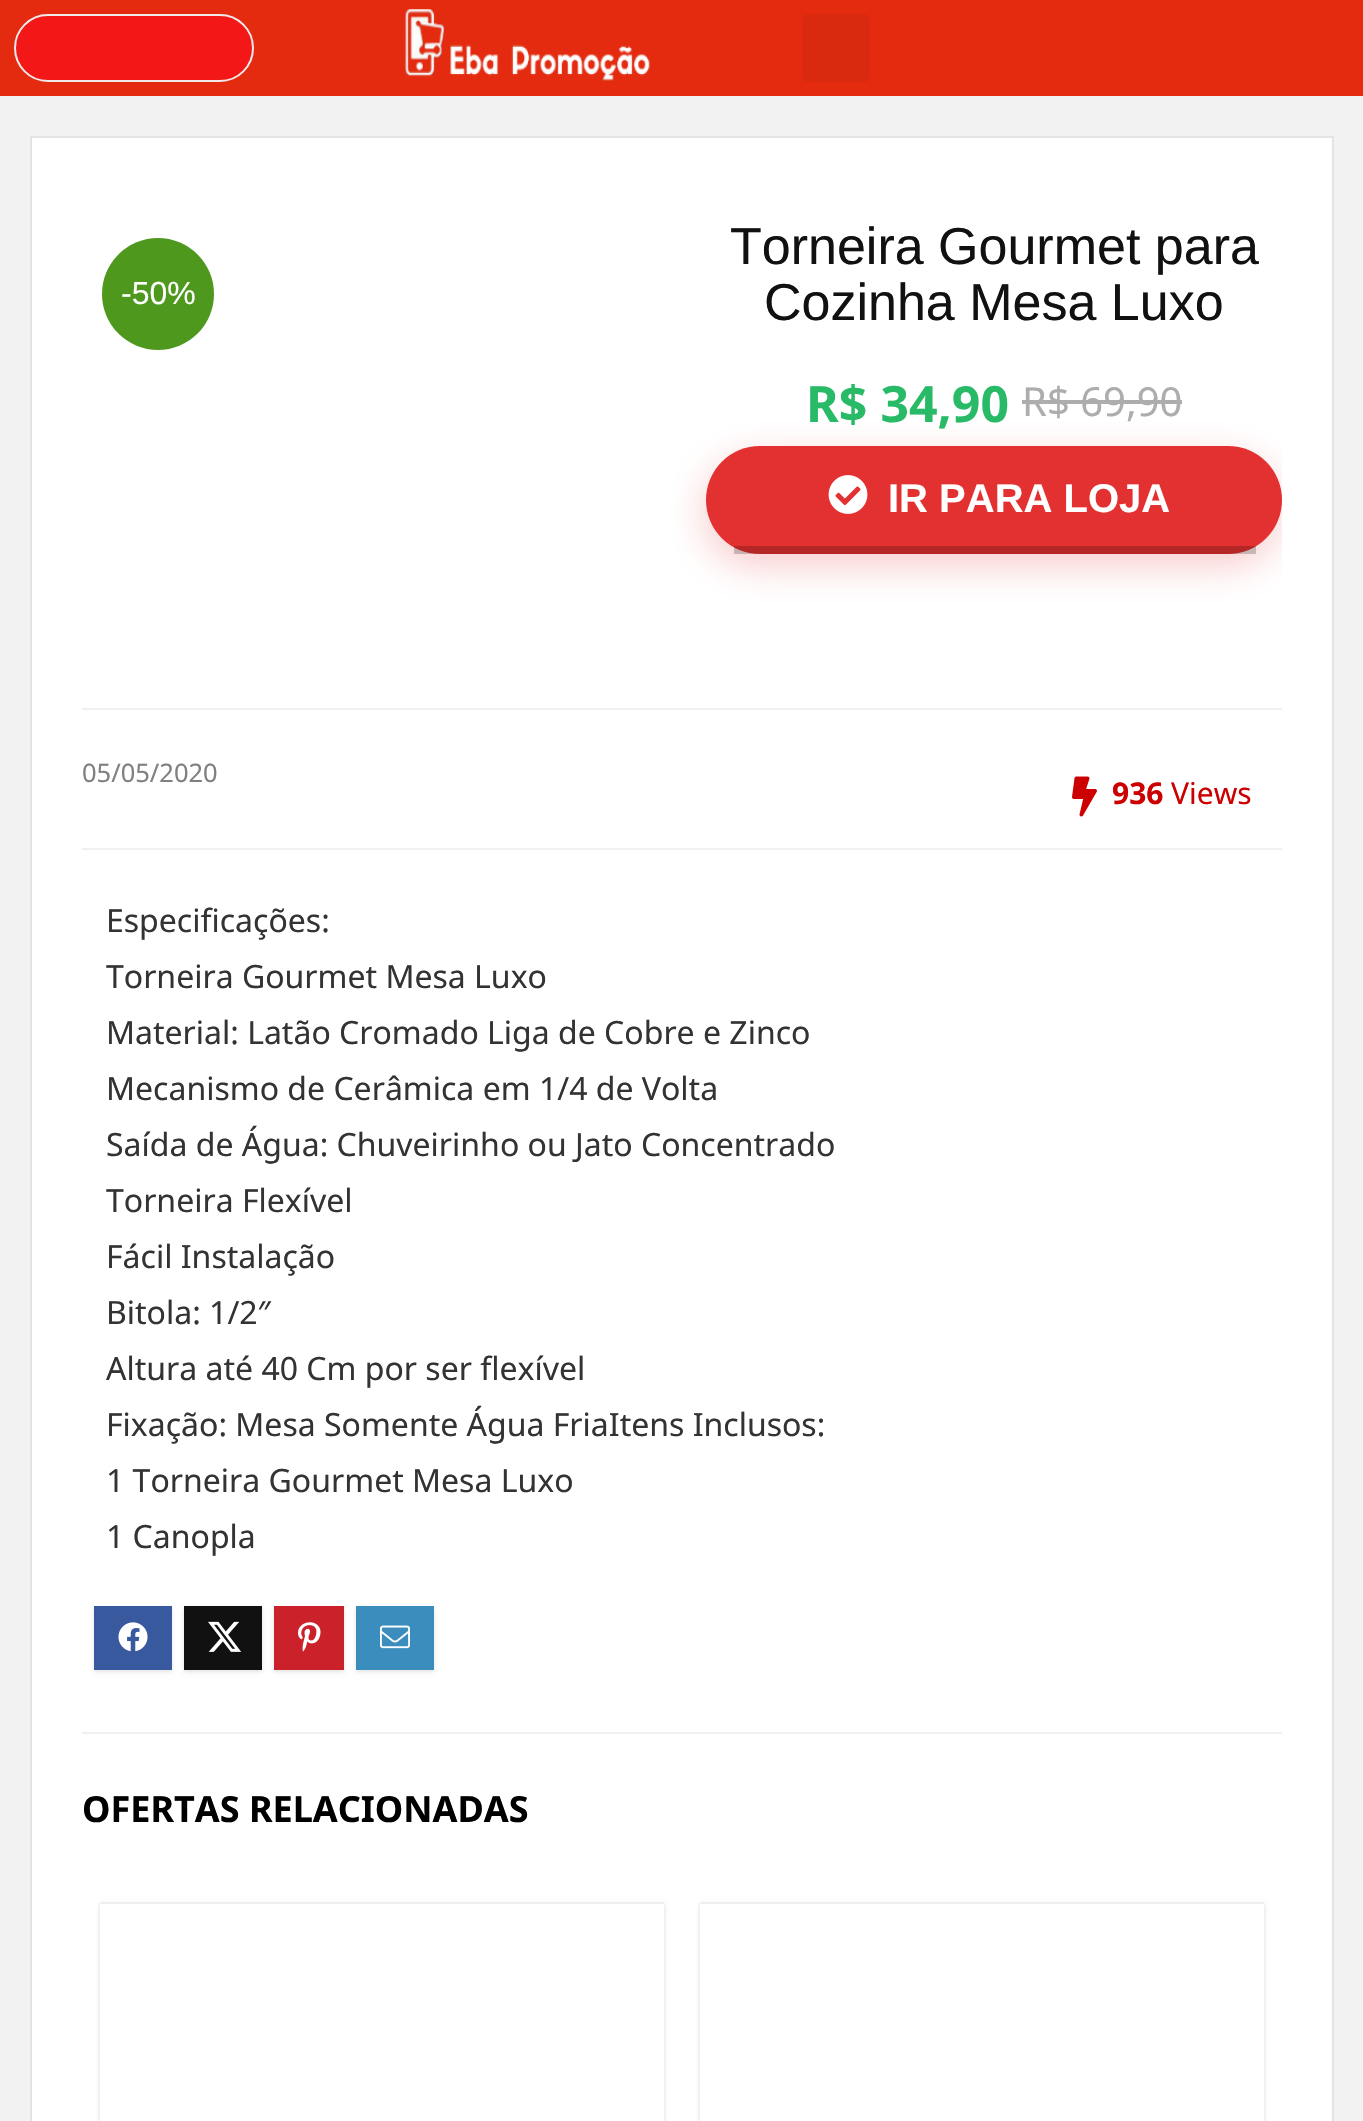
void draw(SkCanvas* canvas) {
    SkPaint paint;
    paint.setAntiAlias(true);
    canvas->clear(0xFFF2F2F2);
    paint.setColor(0xFFE42B0F);
    canvas->drawRect(SkRect::MakeXYWH(0, 0, 1363, 96), paint);
    paint.setColor(0xFFF31717);
    canvas->drawRoundRect(SkRect::MakeXYWH(15, 15, 238, 66), 33, 33, paint);
    paint.setStyle(SkPaint::kStroke_Style);
    paint.setStrokeWidth(2);
    paint.setColor(0xFFF0EAEA);
    canvas->drawRoundRect(SkRect::MakeXYWH(15, 15, 238, 66), 33, 33, paint);
    canvas->drawImageRect(SkImages::DeferredFromEncodedData(SkData::MakeFromFileName("img1.png")), SkRect::MakeXYWH(404, 9, 246, 72), SkSamplingOptions());
    paint.setStyle(SkPaint::kFill_Style);
    paint.setColor(0xFFD9290E);
    canvas->drawRoundRect(SkRect::MakeXYWH(802, 14, 68, 68), 6, 6, paint);
    paint.setColor(0xFFFFFFFF);
    canvas->drawRect(SkRect::MakeXYWH(31, 137, 1302, 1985), paint);
    paint.setStyle(SkPaint::kStroke_Style);
    paint.setColor(0xFFE3E3E3);
    canvas->drawRect(SkRect::MakeXYWH(31, 137, 1302, 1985), paint);
    paint.setStyle(SkPaint::kFill_Style);
    paint.setColor(0xFFF0F0F0);
    canvas->drawRect(SkRect::MakeXYWH(82, 708, 1200, 2), paint);
    paint.setColor(0xFF4D981D);
    canvas->drawCircle(158, 294, 56, paint);
    SkFont font1(fontMgr->matchFamilyStyle("Liberation Sans", SkFontStyle::Normal()), 32);
    font1.setSubpixel(true);
    paint.setColor(0xFFFFFFFF);
    canvas->drawString("-50%", 121, 304, font1, paint);
    SkFont font2(fontMgr->matchFamilyStyle("Liberation Sans", SkFontStyle::Normal()), 52);
    font2.setSubpixel(true);
    paint.setColor(0xFF111111);
    canvas->drawString("Torneira Gourmet para", 730, 264, font2, paint);
    canvas->drawString("Cozinha Mesa Luxo", 764, 320, font2, paint);
    SkFont font3(fontMgr->matchFamilyStyle("Noto Sans", SkFontStyle::Bold()), 50);
    font3.setSubpixel(true);
    paint.setColor(0xFF28BA66);
    canvas->drawString("R$ 34,90", 806, 422, font3, paint);
    SkFont font4(fontMgr->matchFamilyStyle("Noto Sans", SkFontStyle::Normal()), 40);
    font4.setSubpixel(true);
    paint.setColor(0xFFADADAD);
    canvas->drawString("R$ 69,90", 1022, 416, font4, paint);
    canvas->drawRect(SkRect::MakeXYWH(1022, 400, 160, 4), paint);
    canvas->save();
    canvas->clipRect(SkRect::MakeXYWH(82, 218, 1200, 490));
    paint.setColor(0x40E33030);
    paint.setMaskFilter(SkMaskFilter::MakeBlur(kNormal_SkBlurStyle, 19));
    canvas->drawRoundRect(SkRect::MakeXYWH(704, 458, 576, 108), 54, 54, paint);
    paint.setMaskFilter(nullptr);
    canvas->restore();
    paint.setColor(0xFFE33030);
    canvas->drawRoundRect(SkRect::MakeXYWH(706, 446, 576, 108), 54, 54, paint);
    paint.setColor(0x33000000);
    canvas->drawRect(SkRect::MakeXYWH(734, 546, 522, 8), paint);
    canvas->drawImageRect(SkImages::DeferredFromEncodedData(SkData::MakeFromFileName("img2.png")), SkRect::MakeXYWH(828, 475, 40, 39), SkSamplingOptions());
    SkFont font5(fontMgr->matchFamilyStyle("Liberation Sans", SkFontStyle::Bold()), 40);
    font5.setSubpixel(true);
    paint.setColor(0xFFFFFFFF);
    canvas->drawString("IR PARA LOJA", 888, 512, font5, paint);
    paint.setColor(0xFFF0F0F0);
    canvas->drawRect(SkRect::MakeXYWH(82, 848, 1200, 2), paint);
    SkFont font6(fontMgr->matchFamilyStyle("Noto Sans", SkFontStyle::Normal()), 25.5f);
    font6.setSubpixel(true);
    paint.setColor(0xFF808080);
    canvas->drawString("05/05/2020", 82, 782, font6, paint);
    canvas->drawImageRect(SkImages::DeferredFromEncodedData(SkData::MakeFromFileName("img3.png")), SkRect::MakeXYWH(1072, 776, 25, 41), SkSamplingOptions());
    SkFont font7(fontMgr->matchFamilyStyle("Noto Sans", SkFontStyle::Bold()), 30);
    font7.setSubpixel(true);
    paint.setColor(0xFFCC0000);
    canvas->drawString("936", 1112, 804, font7, paint);
    SkFont font8(fontMgr->matchFamilyStyle("Noto Sans", SkFontStyle::Normal()), 30);
    font8.setSubpixel(true);
    canvas->drawString("Views", 1171, 804, font8, paint);
    SkFont font9(fontMgr->matchFamilyStyle("Noto Sans", SkFontStyle::Normal()), 32);
    font9.setSubpixel(true);
    paint.setColor(0xFF333333);
    canvas->drawString("Especificações:", 106, 932, font9, paint);
    canvas->drawString("Torneira Gourmet Mesa Luxo", 106, 988, font9, paint);
    canvas->drawString("Material: Latão Cromado Liga de Cobre e Zinco", 106, 1044, font9, paint);
    canvas->drawString("Mecanismo de Cerâmica em 1/4 de Volta", 106, 1100, font9, paint);
    canvas->drawString("Saída de Água: Chuveirinho ou Jato Concentrado", 106, 1156, font9, paint);
    canvas->drawString("Torneira Flexível", 106, 1212, font9, paint);
    canvas->drawString("Fácil Instalação", 106, 1268, font9, paint);
    canvas->drawString("Bitola: 1/2″", 106, 1324, font9, paint);
    canvas->drawString("Altura até 40 Cm por ser flexível", 106, 1380, font9, paint);
    canvas->drawString("Fixação: Mesa Somente Água FriaItens Inclusos:", 106, 1436, font9, paint);
    canvas->drawString("1 Torneira Gourmet Mesa Luxo", 106, 1492, font9, paint);
    canvas->drawString("1 Canopla", 106, 1548, font9, paint);
    paint.setColor(0xFFE4E4E4);
    paint.setMaskFilter(SkMaskFilter::MakeBlur(kNormal_SkBlurStyle, 2));
    canvas->drawRect(SkRect::MakeXYWH(94, 1608, 78, 64), paint);
    paint.setMaskFilter(nullptr);
    paint.setColor(0xFF39599F);
    canvas->drawRect(SkRect::MakeXYWH(94, 1606, 78, 64), paint);
    canvas->drawImageRect(SkImages::DeferredFromEncodedData(SkData::MakeFromFileName("img4.png")), SkRect::MakeXYWH(118, 1622, 30, 30), SkSamplingOptions());
    paint.setColor(0xFFE4E4E4);
    paint.setMaskFilter(SkMaskFilter::MakeBlur(kNormal_SkBlurStyle, 2));
    canvas->drawRect(SkRect::MakeXYWH(184, 1608, 78, 64), paint);
    paint.setMaskFilter(nullptr);
    paint.setColor(0xFF111111);
    canvas->drawRect(SkRect::MakeXYWH(184, 1606, 78, 64), paint);
    canvas->drawImageRect(SkImages::DeferredFromEncodedData(SkData::MakeFromFileName("img5.png")), SkRect::MakeXYWH(208, 1621, 34, 31), SkSamplingOptions());
    paint.setColor(0xFFE4E4E4);
    paint.setMaskFilter(SkMaskFilter::MakeBlur(kNormal_SkBlurStyle, 2));
    canvas->drawRect(SkRect::MakeXYWH(274, 1608, 70, 64), paint);
    paint.setMaskFilter(nullptr);
    paint.setColor(0xFFCA212A);
    canvas->drawRect(SkRect::MakeXYWH(274, 1606, 70, 64), paint);
    canvas->drawImageRect(SkImages::DeferredFromEncodedData(SkData::MakeFromFileName("img6.png")), SkRect::MakeXYWH(298, 1622, 23, 30), SkSamplingOptions());
    paint.setColor(0xFFE4E4E4);
    paint.setMaskFilter(SkMaskFilter::MakeBlur(kNormal_SkBlurStyle, 2));
    canvas->drawRect(SkRect::MakeXYWH(356, 1608, 78, 64), paint);
    paint.setMaskFilter(nullptr);
    paint.setColor(0xFF3B8DBD);
    canvas->drawRect(SkRect::MakeXYWH(356, 1606, 78, 64), paint);
    canvas->drawImageRect(SkImages::DeferredFromEncodedData(SkData::MakeFromFileName("img7.png")), SkRect::MakeXYWH(380, 1625, 30, 24), SkSamplingOptions());
    paint.setColor(0xFFF0F0F0);
    canvas->drawRect(SkRect::MakeXYWH(82, 1732, 1200, 2), paint);
    SkFont font10(fontMgr->matchFamilyStyle("Noto Sans", SkFontStyle::Bold()), 36);
    font10.setSubpixel(true);
    paint.setColor(0xFF000000);
    canvas->drawString("OFERTAS RELACIONADAS", 82, 1822, font10, paint);
    canvas->save();
    canvas->clipPath(SkPathBuilder(SkPathFillType::kEvenOdd).moveTo(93, 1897).lineTo(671, 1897).lineTo(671, 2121).lineTo(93, 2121).close().moveTo(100, 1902).lineTo(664, 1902).lineTo(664, 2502).lineTo(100, 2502).close().detach(), true);
    paint.setColor(0x26000000);
    paint.setMaskFilter(SkMaskFilter::MakeBlur(kNormal_SkBlurStyle, 2));
    canvas->drawRect(SkRect::MakeXYWH(100, 1904, 564, 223), paint);
    paint.setMaskFilter(nullptr);
    canvas->restore();
    paint.setColor(0xFFEFEFEF);
    canvas->drawRect(SkRect::MakeXYWH(100, 1902, 564, 2), paint);
    canvas->save();
    canvas->clipPath(SkPathBuilder(SkPathFillType::kEvenOdd).moveTo(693, 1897).lineTo(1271, 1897).lineTo(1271, 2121).lineTo(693, 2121).close().moveTo(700, 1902).lineTo(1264, 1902).lineTo(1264, 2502).lineTo(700, 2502).close().detach(), true);
    paint.setColor(0x26000000);
    paint.setMaskFilter(SkMaskFilter::MakeBlur(kNormal_SkBlurStyle, 2));
    canvas->drawRect(SkRect::MakeXYWH(700, 1904, 564, 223), paint);
    paint.setMaskFilter(nullptr);
    canvas->restore();
    paint.setColor(0xFFEFEFEF);
    canvas->drawRect(SkRect::MakeXYWH(700, 1902, 564, 2), paint);
}
